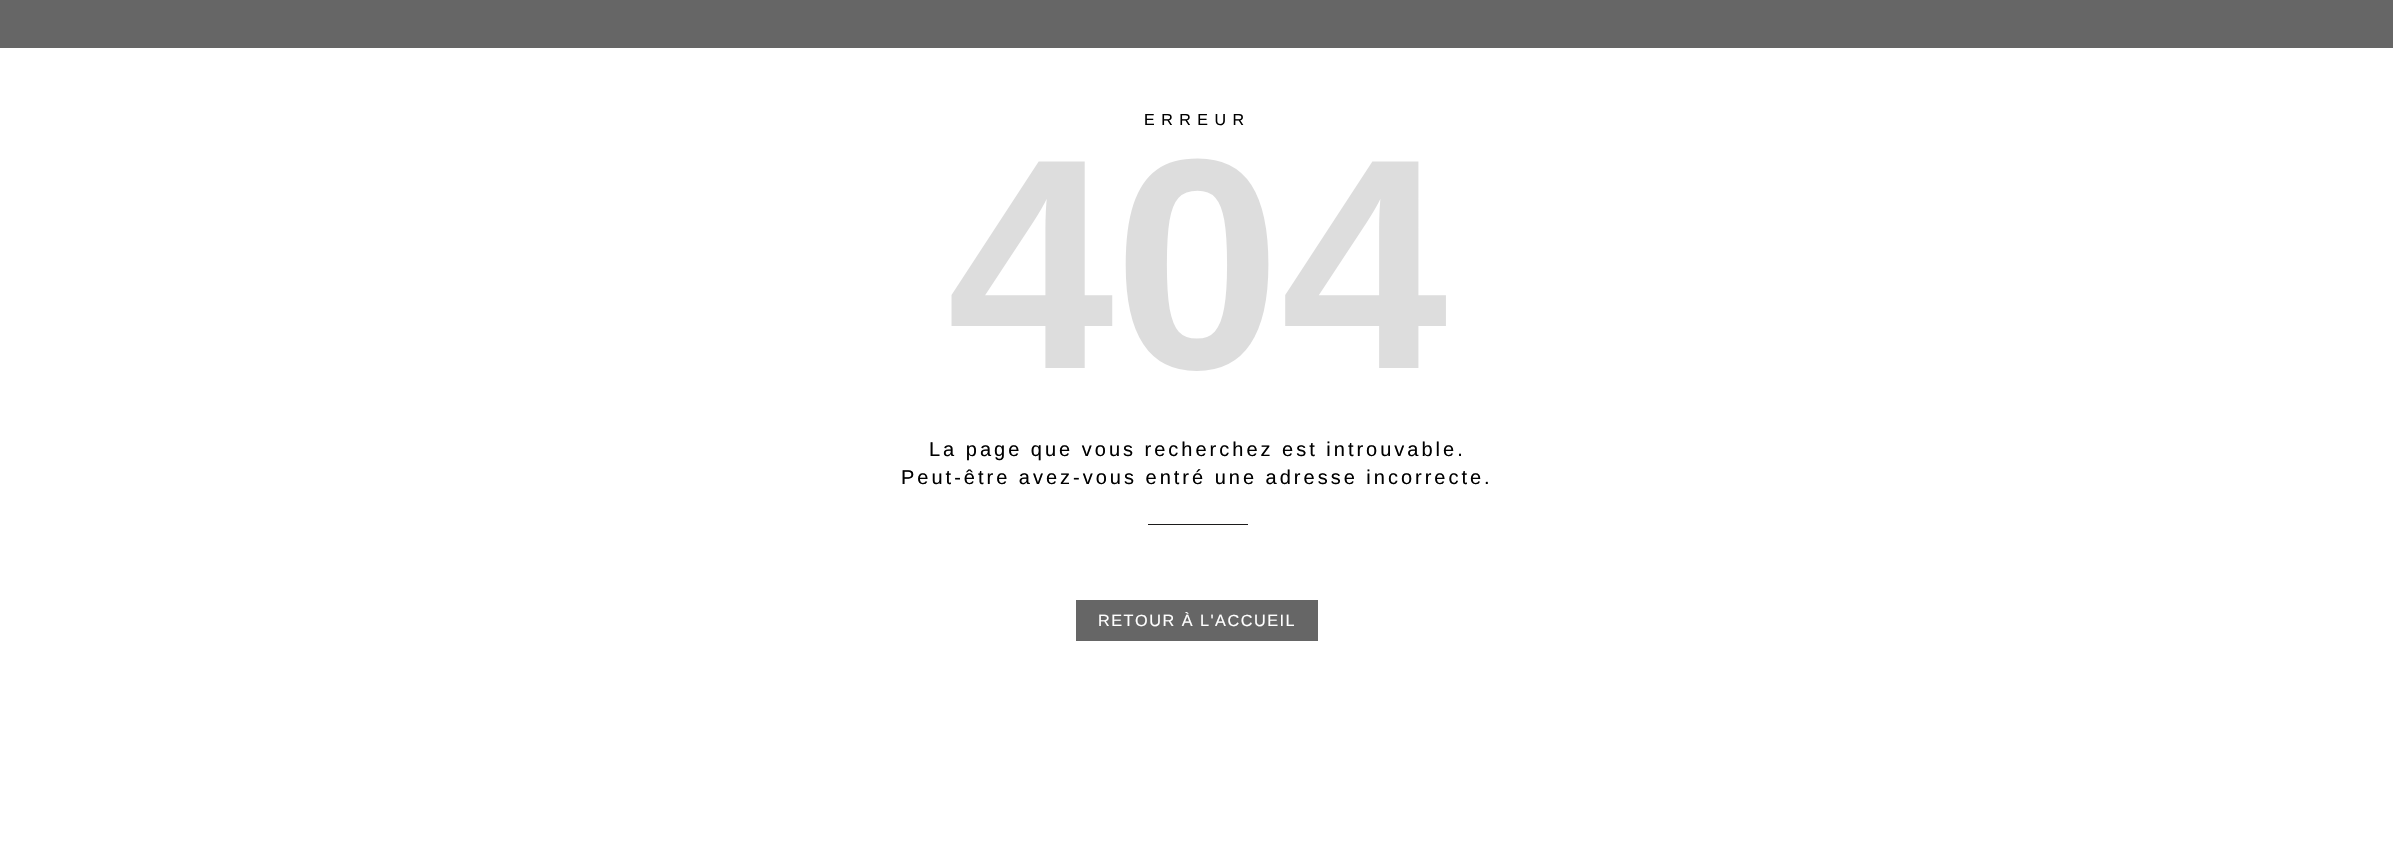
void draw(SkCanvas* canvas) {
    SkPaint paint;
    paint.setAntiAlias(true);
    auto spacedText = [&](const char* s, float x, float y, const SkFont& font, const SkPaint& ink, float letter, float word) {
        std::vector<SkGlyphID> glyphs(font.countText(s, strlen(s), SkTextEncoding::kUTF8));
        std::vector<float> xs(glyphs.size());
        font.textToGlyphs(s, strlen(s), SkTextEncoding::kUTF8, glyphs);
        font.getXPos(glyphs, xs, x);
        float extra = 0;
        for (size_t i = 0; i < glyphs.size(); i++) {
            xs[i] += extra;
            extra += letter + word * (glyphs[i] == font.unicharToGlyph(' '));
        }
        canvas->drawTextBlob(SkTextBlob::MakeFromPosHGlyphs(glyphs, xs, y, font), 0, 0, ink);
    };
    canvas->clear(0xFFFFFFFF);
    paint.setColor(0xFF666666);
    canvas->drawRect(SkRect::MakeXYWH(0, 0, 2393, 48), paint);
    SkFont font1(fontMgr->matchFamilyStyle("Liberation Sans", SkFontStyle::Normal()), 16);
    font1.setSubpixel(true);
    paint.setColor(0xFF000000);
    spacedText("ERREUR", 1144, 125, font1, paint, 6.5f, 0);
    SkFont font2(fontMgr->matchFamilyStyle("Liberation Sans", SkFontStyle::Bold()), 300);
    font2.setSubpixel(true);
    paint.setColor(0xFFDDDDDD);
    canvas->drawString("404", 947, 368, font2, paint);
    SkFont font3(fontMgr->matchFamilyStyle("Liberation Sans", SkFontStyle::Normal()), 20);
    font3.setSubpixel(true);
    paint.setColor(0xFF000000);
    spacedText("La page que vous recherchez est introuvable.", 929, 456, font3, paint, 3, 0);
    spacedText("Peut-être avez-vous entré une adresse incorrecte.", 901, 484, font3, paint, 3, 0);
    paint.setColor(0xFF1D1C1C);
    canvas->drawRect(SkRect::MakeXYWH(1148, 524, 100, 1), paint);
    paint.setColor(0xFF666666);
    canvas->drawRect(SkRect::MakeXYWH(1076, 600, 242, 41), paint);
    SkFont font4(fontMgr->matchFamilyStyle("Liberation Sans", SkFontStyle::Normal()), 16.25f);
    font4.setSubpixel(true);
    paint.setColor(0xFFFFFFFF);
    spacedText("RETOUR À L'ACCUEIL", 1098, 626, font4, paint, 1.5f, 0);
}
